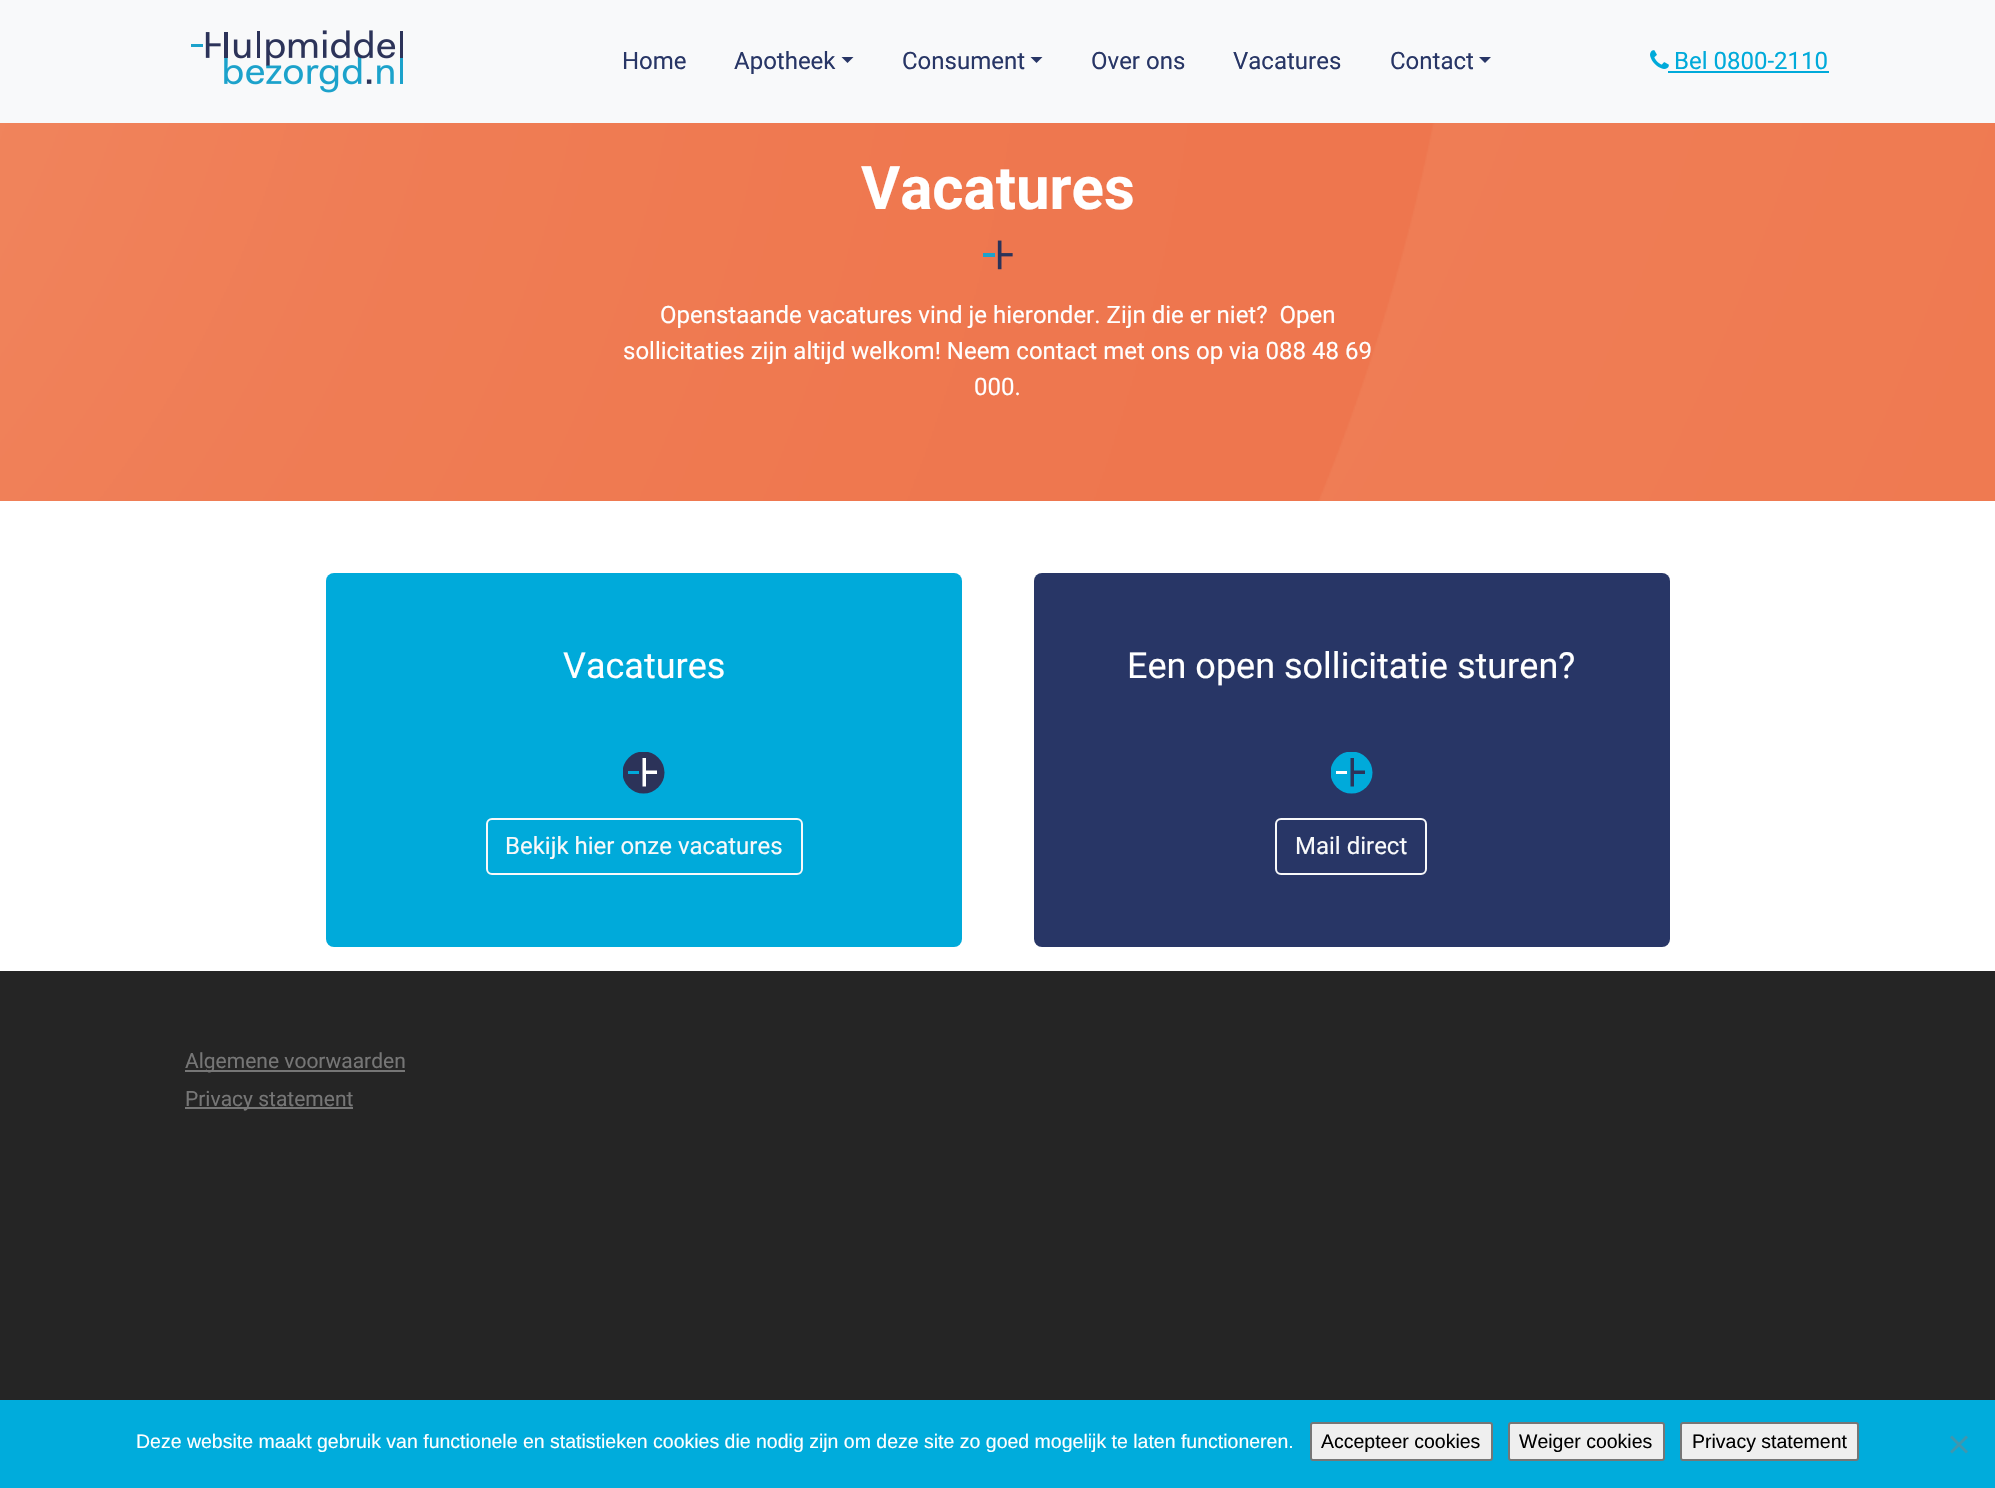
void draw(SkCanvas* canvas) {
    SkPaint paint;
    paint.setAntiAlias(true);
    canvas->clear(0xFFFFFFFF);
    paint.setColor(0xFFF8F9FA);
    canvas->drawRect(SkRect::MakeXYWH(0, 0, 1995, 123), paint);
    canvas->drawImageRect(SkImages::DeferredFromEncodedData(SkData::MakeFromFileName("img1.png")), SkRect::MakeXYWH(191, 30, 212, 63), SkSamplingOptions());
    SkFont font1(fontMgr->matchFamilyStyle("Roboto", SkFontStyle::Normal()), 24);
    font1.setSubpixel(true);
    paint.setColor(0xFF283666);
    canvas->drawString("Home", 622, 69, font1, paint);
    canvas->drawString("Apotheek", 734, 69, font1, paint);
    canvas->drawPath(SkPathBuilder().moveTo(841.5f, 57).lineTo(853.5f, 57).lineTo(847.5f, 63).close().detach(), paint);
    canvas->drawString("Consument", 902, 69, font1, paint);
    canvas->drawPath(SkPathBuilder().moveTo(1030.5f, 57).lineTo(1042.5f, 57).lineTo(1036.5f, 63).close().detach(), paint);
    canvas->drawString("Over ons", 1091, 69, font1, paint);
    canvas->drawString("Vacatures", 1233, 69, font1, paint);
    canvas->drawString("Contact", 1390, 69, font1, paint);
    canvas->drawPath(SkPathBuilder().moveTo(1479, 57).lineTo(1491, 57).lineTo(1485, 63).close().detach(), paint);
    canvas->drawImageRect(SkImages::DeferredFromEncodedData(SkData::MakeFromFileName("img2.png")), SkRect::MakeXYWH(1650, 50, 19, 19), SkSamplingOptions());
    paint.setColor(0xFF00AADA);
    canvas->drawString("Bel 0800-2110", 1674, 69, font1, paint);
    canvas->drawRect(SkRect::MakeXYWH(1668, 71, 161, 2), paint);
    canvas->drawImageRect(SkImages::DeferredFromEncodedData(SkData::MakeFromFileName("img3.png")), SkRect::MakeXYWH(0, 123, 1995, 378), SkSamplingOptions());
    SkFont font2(fontMgr->matchFamilyStyle("Roboto", SkFontStyle::Bold()), 60);
    font2.setSubpixel(true);
    paint.setColor(0xFFFFFFFF);
    canvas->drawString("Vacatures", 861, 209, font2, paint);
    canvas->drawImageRect(SkImages::DeferredFromEncodedData(SkData::MakeFromFileName("img4.png")), SkRect::MakeXYWH(983, 240, 30, 30), SkSamplingOptions());
    canvas->drawString("Openstaande vacatures vind je hieronder. Zijn die er niet?  Open", 660, 323, font1, paint);
    canvas->drawString("sollicitaties zijn altijd welkom! Neem contact met ons op via 088 48 69", 623, 359, font1, paint);
    canvas->drawString("000.", 974, 395, font1, paint);
    paint.setColor(0xFF00AADA);
    canvas->drawRoundRect(SkRect::MakeXYWH(326, 573, 636, 374), 8, 8, paint);
    SkFont font3(fontMgr->matchFamilyStyle("Roboto", SkFontStyle::Normal()), 36);
    font3.setSubpixel(true);
    paint.setColor(0xFFFFFFFF);
    canvas->drawString("Vacatures", 563, 678, font3, paint);
    canvas->save();
    canvas->clipRect(SkRect::MakeXYWH(623, 752, 42, 42));
    paint.setColor(0xFF2C3359);
    canvas->drawCircle(643.5f, 772.5f, 21, paint);
    canvas->restore();
    paint.setColor(0xFF00AADA);
    canvas->drawRect(SkRect::MakeXYWH(628, 771, 11, 3), paint);
    paint.setColor(0xFFFFFFFF);
    canvas->drawPath(SkPathBuilder().moveTo(657, 770.5f).lineTo(646, 770.5f).lineTo(646, 758).lineTo(642.5f, 758).lineTo(642.5f, 786.5f).lineTo(646, 786.5f).lineTo(646, 774).lineTo(657, 774).lineTo(657, 770.5f).detach(), paint);
    paint.setStyle(SkPaint::kStroke_Style);
    paint.setStrokeWidth(2);
    paint.setColor(0xFFF8F9FA);
    canvas->drawRoundRect(SkRect::MakeXYWH(487, 819, 315, 55), 5, 5, paint);
    paint.setStyle(SkPaint::kFill_Style);
    canvas->drawString("Bekijk hier onze vacatures", 505, 854, font1, paint);
    paint.setColor(0xFF283666);
    canvas->drawRoundRect(SkRect::MakeXYWH(1034, 573, 636, 374), 8, 8, paint);
    paint.setColor(0xFFFFFFFF);
    canvas->drawString("Een open sollicitatie sturen?", 1127, 678, font3, paint);
    canvas->save();
    canvas->clipRect(SkRect::MakeXYWH(1331, 752, 42, 42));
    paint.setColor(0xFF00AADA);
    canvas->drawCircle(1351.5f, 772.5f, 21, paint);
    canvas->restore();
    paint.setColor(0xFFFFFFFF);
    canvas->drawRect(SkRect::MakeXYWH(1336, 771, 11, 3), paint);
    paint.setColor(0xFF2C3359);
    canvas->drawPath(SkPathBuilder().moveTo(1365, 770.5f).lineTo(1354, 770.5f).lineTo(1354, 758).lineTo(1350.5f, 758).lineTo(1350.5f, 786.5f).lineTo(1354, 786.5f).lineTo(1354, 774).lineTo(1365, 774).lineTo(1365, 770.5f).detach(), paint);
    paint.setStyle(SkPaint::kStroke_Style);
    paint.setColor(0xFFF8F9FA);
    canvas->drawRoundRect(SkRect::MakeXYWH(1276, 819, 150, 55), 5, 5, paint);
    paint.setStyle(SkPaint::kFill_Style);
    canvas->drawString("Mail direct", 1295, 854, font1, paint);
    paint.setColor(0xFF252525);
    canvas->drawRect(SkRect::MakeXYWH(0, 971, 1995, 429), paint);
    paint.setColor(0xFF767676);
    canvas->drawRect(SkRect::MakeXYWH(185, 1070, 220, 2), paint);
    SkFont font4(fontMgr->matchFamilyStyle("Roboto", SkFontStyle::Normal()), 21);
    font4.setSubpixel(true);
    canvas->drawString("Algemene voorwaarden", 185, 1068, font4, paint);
    canvas->drawRect(SkRect::MakeXYWH(185, 1107, 168, 2), paint);
    canvas->drawString("Privacy statement", 185, 1106, font4, paint);
    paint.setColor(0xFF00ACDC);
    canvas->drawRect(SkRect::MakeXYWH(0, 1400, 1995, 88), paint);
    SkFont font5(fontMgr->matchFamilyStyle("Liberation Sans", SkFontStyle::Normal()), 19.5f);
    font5.setSubpixel(true);
    paint.setColor(0xFFFFFFFF);
    canvas->drawString("Deze website maakt gebruik van functionele en statistieken cookies die nodig zijn om deze site zo goed mogelijk te laten functioneren.", 136, 1448, font5, paint);
    paint.setColor(0xFFEFEFEF);
    canvas->drawRoundRect(SkRect::MakeXYWH(1311, 1423, 181, 37), 2, 2, paint);
    paint.setStyle(SkPaint::kStroke_Style);
    paint.setColor(0xFF767676);
    canvas->drawRoundRect(SkRect::MakeXYWH(1311, 1423, 181, 37), 2, 2, paint);
    paint.setStyle(SkPaint::kFill_Style);
    paint.setColor(0xFF000000);
    canvas->drawString("Accepteer cookies", 1321, 1448, font5, paint);
    paint.setColor(0xFFEFEFEF);
    canvas->drawRoundRect(SkRect::MakeXYWH(1509, 1423, 155, 37), 2, 2, paint);
    paint.setStyle(SkPaint::kStroke_Style);
    paint.setColor(0xFF767676);
    canvas->drawRoundRect(SkRect::MakeXYWH(1509, 1423, 155, 37), 2, 2, paint);
    paint.setStyle(SkPaint::kFill_Style);
    paint.setColor(0xFF000000);
    canvas->drawString("Weiger cookies", 1519, 1448, font5, paint);
    paint.setColor(0xFFEFEFEF);
    canvas->drawRoundRect(SkRect::MakeXYWH(1681, 1423, 177, 37), 2, 2, paint);
    paint.setStyle(SkPaint::kStroke_Style);
    paint.setColor(0xFF767676);
    canvas->drawRoundRect(SkRect::MakeXYWH(1681, 1423, 177, 37), 2, 2, paint);
    paint.setStyle(SkPaint::kFill_Style);
    paint.setColor(0xFF000000);
    canvas->drawString("Privacy statement", 1692, 1448, font5, paint);
    paint.setColor(0xFF4096AE);
    canvas->drawPath(SkPathBuilder().moveTo(1966, 1435.5f).lineTo(1968, 1437.5f).lineTo(1952, 1453.5f).lineTo(1950, 1451.5f).close().detach(), paint);
    canvas->drawPath(SkPathBuilder().moveTo(1950, 1437.5f).lineTo(1952, 1435.5f).lineTo(1968, 1451.5f).lineTo(1966, 1453.5f).close().detach(), paint);
}
